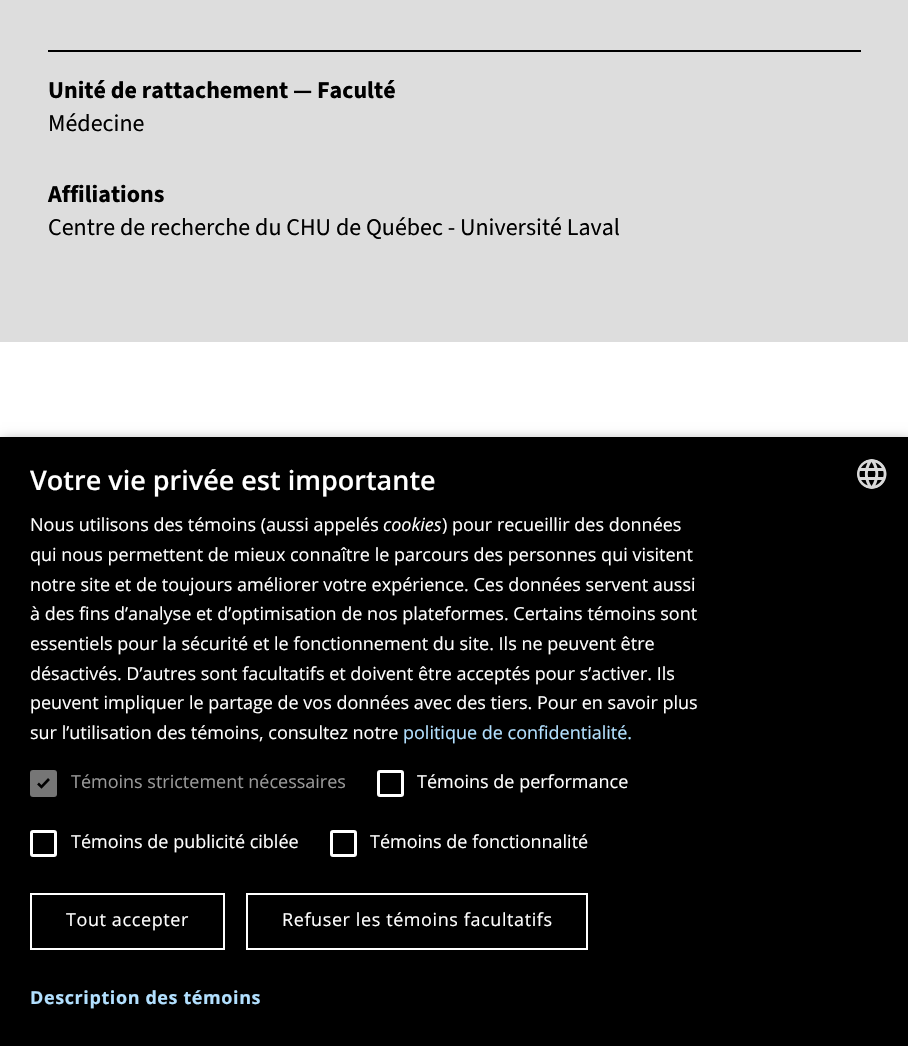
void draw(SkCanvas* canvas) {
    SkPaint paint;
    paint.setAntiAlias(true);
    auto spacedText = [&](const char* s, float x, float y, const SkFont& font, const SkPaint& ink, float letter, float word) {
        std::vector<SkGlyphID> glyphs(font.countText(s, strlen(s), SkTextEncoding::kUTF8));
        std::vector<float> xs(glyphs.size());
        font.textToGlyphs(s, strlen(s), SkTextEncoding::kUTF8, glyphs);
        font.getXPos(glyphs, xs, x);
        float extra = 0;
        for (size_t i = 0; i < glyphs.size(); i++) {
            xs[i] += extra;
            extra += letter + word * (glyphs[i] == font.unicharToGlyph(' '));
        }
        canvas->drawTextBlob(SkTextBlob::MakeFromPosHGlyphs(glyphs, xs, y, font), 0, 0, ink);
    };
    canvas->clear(0xFFFFFFFF);
    paint.setColor(0xFFDDDDDD);
    canvas->drawRect(SkRect::MakeXYWH(0, 0, 908, 342), paint);
    paint.setColor(0xFF000000);
    canvas->drawRect(SkRect::MakeXYWH(48, 50, 813, 2), paint);
    SkFont font1(fontMgr->matchFamilyStyle("Source Sans 3", SkFontStyle::Bold()), 24);
    font1.setSubpixel(true);
    canvas->drawString("Unité de rattachement — Faculté", 48, 98, font1, paint);
    SkFont font2(fontMgr->matchFamilyStyle("Source Sans 3", SkFontStyle::Normal()), 24);
    font2.setSubpixel(true);
    canvas->drawString("Médecine", 48, 131, font2, paint);
    canvas->drawString("Affiliations", 48, 202, font1, paint);
    canvas->drawString("Centre de recherche du CHU de Québec - Université Laval", 48, 235, font2, paint);
    paint.setColor(0x59000000);
    paint.setMaskFilter(SkMaskFilter::MakeBlur(kNormal_SkBlurStyle, 6));
    canvas->drawRect(SkRect::MakeXYWH(2, 440, 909, 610), paint);
    paint.setMaskFilter(nullptr);
    paint.setColor(0xFF000000);
    canvas->drawRect(SkRect::MakeXYWH(0, 437, 908, 609), paint);
    SkFont font3(fontMgr->matchFamilyStyle("Open Sans", SkFontStyle(600, SkFontStyle::kNormal_Width, SkFontStyle::kUpright_Slant)), 27);
    font3.setSubpixel(true);
    paint.setColor(0xFFFFFFFF);
    canvas->drawString("Votre vie privée est importante", 30, 490, font3, paint);
    canvas->drawImageRect(SkImages::DeferredFromEncodedData(SkData::MakeFromFileName("img1.png")), SkRect::MakeXYWH(857, 459, 30, 30), SkSamplingOptions());
    SkFont font4(fontMgr->matchFamilyStyle("Open Sans", SkFontStyle::Normal()), 18);
    font4.setSubpixel(true);
    canvas->drawString("Nous utilisons des témoins (aussi appelés", 30, 531, font4, paint);
    SkFont font5(fontMgr->matchFamilyStyle("Open Sans", SkFontStyle::Italic()), 18);
    font5.setSubpixel(true);
    canvas->drawString("cookies", 383, 531, font5, paint);
    canvas->drawString(") pour recueillir des données", 442, 531, font4, paint);
    canvas->drawString("qui nous permettent de mieux connaître le parcours des personnes qui visitent", 30, 561, font4, paint);
    canvas->drawString("notre site et de toujours améliorer votre expérience. Ces données servent aussi", 30, 591, font4, paint);
    canvas->drawString("à des fins d’analyse et d’optimisation de nos plateformes. Certains témoins sont", 30, 620, font4, paint);
    canvas->drawString("essentiels pour la sécurité et le fonctionnement du site. Ils ne peuvent être", 30, 650, font4, paint);
    canvas->drawString("désactivés. D’autres sont facultatifs et doivent être acceptés pour s’activer. Ils", 30, 680, font4, paint);
    canvas->drawString("peuvent impliquer le partage de vos données avec des tiers. Pour en savoir plus", 30, 709, font4, paint);
    canvas->drawString("sur l’utilisation des témoins, consultez notre", 30, 739, font4, paint);
    paint.setColor(0xFFB2E0FF);
    canvas->drawString("politique de confidentialité.", 403, 739, font4, paint);
    paint.setColor(0xFF767676);
    canvas->drawRoundRect(SkRect::MakeXYWH(30, 770, 27, 27), 3, 3, paint);
    paint.setStyle(SkPaint::kStroke_Style);
    paint.setStrokeWidth(2.6f);
    paint.setColor(0xFF000000);
    canvas->drawPath(SkPathBuilder().moveTo(38, 783.5f).lineTo(41.5f, 787).lineTo(49, 779).detach(), paint);
    paint.setStyle(SkPaint::kFill_Style);
    paint.setColor(0xFF999999);
    canvas->drawString("Témoins strictement nécessaires", 71, 788, font4, paint);
    paint.setStyle(SkPaint::kStroke_Style);
    paint.setStrokeWidth(3);
    paint.setColor(0xFFFFFFFF);
    canvas->drawRoundRect(SkRect::MakeXYWH(378.5f, 771.5f, 24, 24), 1.5f, 1.5f, paint);
    paint.setStyle(SkPaint::kFill_Style);
    canvas->drawString("Témoins de performance", 417, 788, font4, paint);
    paint.setStyle(SkPaint::kStroke_Style);
    canvas->drawRoundRect(SkRect::MakeXYWH(31.5f, 831.5f, 24, 24), 1.5f, 1.5f, paint);
    paint.setStyle(SkPaint::kFill_Style);
    canvas->drawString("Témoins de publicité ciblée", 71, 848, font4, paint);
    paint.setStyle(SkPaint::kStroke_Style);
    canvas->drawRoundRect(SkRect::MakeXYWH(331.5f, 831.5f, 24, 24), 1.5f, 1.5f, paint);
    paint.setStyle(SkPaint::kFill_Style);
    canvas->drawString("Témoins de fonctionnalité", 370, 848, font4, paint);
    paint.setStyle(SkPaint::kStroke_Style);
    paint.setStrokeWidth(2);
    canvas->drawRect(SkRect::MakeXYWH(31, 894, 193, 55), paint);
    paint.setStyle(SkPaint::kFill_Style);
    spacedText("Tout accepter", 66, 926, font4, paint, 0.6f, 0);
    paint.setStyle(SkPaint::kStroke_Style);
    canvas->drawRect(SkRect::MakeXYWH(247, 894, 340, 55), paint);
    paint.setStyle(SkPaint::kFill_Style);
    spacedText("Refuser les témoins facultatifs", 282, 926, font4, paint, 0.6f, 0);
    SkFont font6(fontMgr->matchFamilyStyle("Open Sans", SkFontStyle::Bold()), 18);
    font6.setSubpixel(true);
    paint.setColor(0xFFB2E0FF);
    spacedText("Description des témoins", 30, 1004, font6, paint, 0.6f, 0);
}
